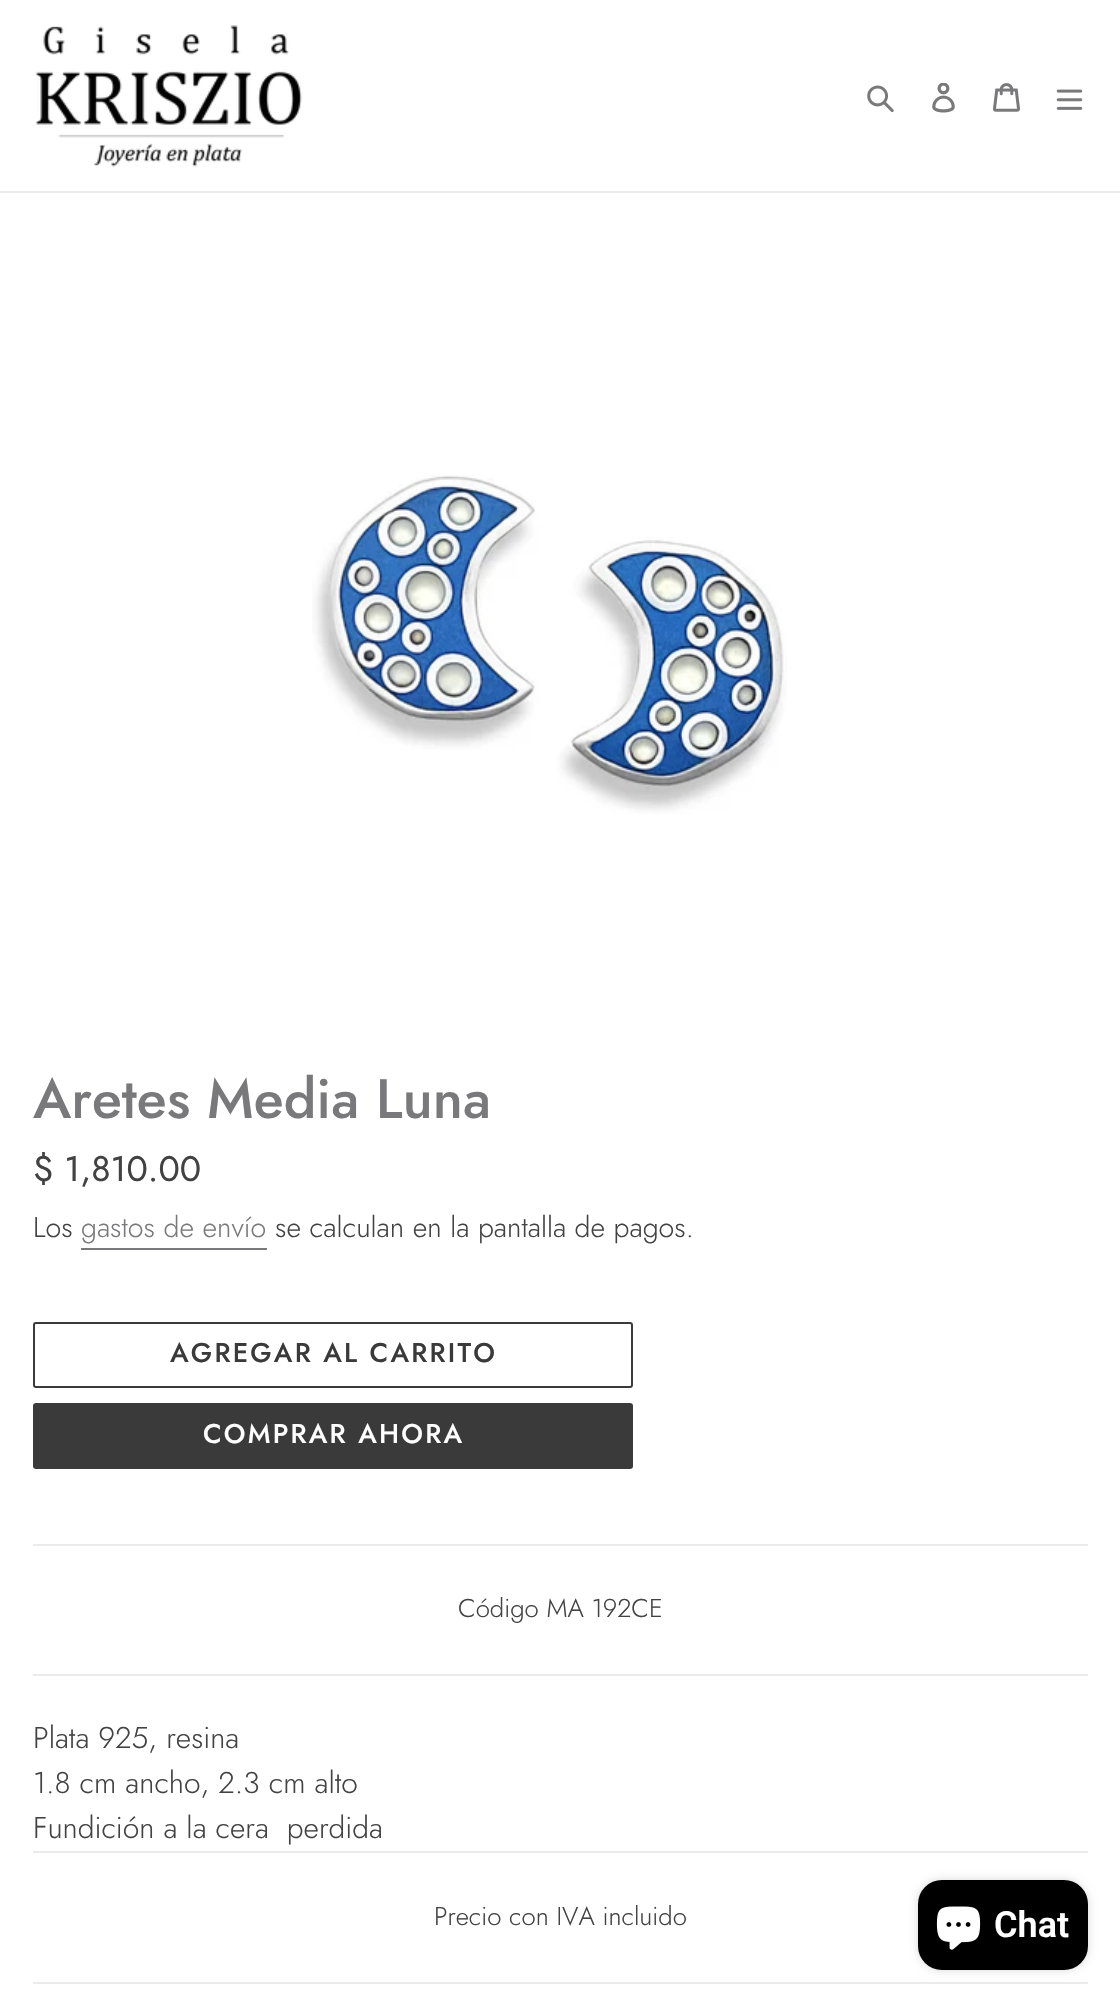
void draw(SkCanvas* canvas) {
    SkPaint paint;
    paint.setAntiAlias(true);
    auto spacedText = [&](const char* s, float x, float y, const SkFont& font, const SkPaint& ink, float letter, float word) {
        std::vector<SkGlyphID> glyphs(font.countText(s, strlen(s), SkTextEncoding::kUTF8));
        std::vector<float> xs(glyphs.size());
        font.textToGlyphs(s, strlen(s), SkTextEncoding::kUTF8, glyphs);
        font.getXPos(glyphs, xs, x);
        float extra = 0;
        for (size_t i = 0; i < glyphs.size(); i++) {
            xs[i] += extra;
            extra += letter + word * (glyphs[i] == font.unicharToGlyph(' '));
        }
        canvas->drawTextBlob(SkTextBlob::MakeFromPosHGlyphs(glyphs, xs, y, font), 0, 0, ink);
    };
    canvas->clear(0xFFFFFFFF);
    paint.setColor(0xFFEBEBEB);
    canvas->drawRect(SkRect::MakeXYWH(0, 191, 1120, 2), paint);
    canvas->drawImageRect(SkImages::DeferredFromEncodedData(SkData::MakeFromFileName("img1.png")), SkRect::MakeXYWH(35, 25, 267, 142), SkSamplingOptions());
    canvas->drawImageRect(SkImages::DeferredFromEncodedData(SkData::MakeFromFileName("img2.png")), SkRect::MakeXYWH(867, 85, 27, 28), SkSamplingOptions());
    canvas->drawImageRect(SkImages::DeferredFromEncodedData(SkData::MakeFromFileName("img3.png")), SkRect::MakeXYWH(932, 83, 23, 30), SkSamplingOptions());
    canvas->drawImageRect(SkImages::DeferredFromEncodedData(SkData::MakeFromFileName("img4.png")), SkRect::MakeXYWH(993, 83, 27, 29), SkSamplingOptions());
    canvas->drawImageRect(SkImages::DeferredFromEncodedData(SkData::MakeFromFileName("img5.png")), SkRect::MakeXYWH(1056, 89, 27, 21), SkSamplingOptions());
    canvas->drawImageRect(SkImages::DeferredFromEncodedData(SkData::MakeFromFileName("img6.png")), SkRect::MakeXYWH(312, 475, 475, 339), SkSamplingOptions());
    SkFont font1(fontMgr->matchFamilyStyle("Jost", SkFontStyle(500, SkFontStyle::kNormal_Width, SkFontStyle::kUpright_Slant)), 55.5f);
    font1.setSubpixel(true);
    paint.setColor(0xFF79797B);
    canvas->drawString("Aretes Media Luna", 33, 1118, font1, paint);
    SkFont font2(fontMgr->matchFamilyStyle("Jost", SkFontStyle::Normal()), 35.5f);
    font2.setSubpixel(true);
    paint.setColor(0xFF424243);
    canvas->drawString("$ 1,810.00", 33, 1181, font2, paint);
    SkFont font3(fontMgr->matchFamilyStyle("Jost", SkFontStyle(300, SkFontStyle::kNormal_Width, SkFontStyle::kUpright_Slant)), 28.5f);
    font3.setSubpixel(true);
    canvas->drawString("Los", 33, 1237, font3, paint);
    paint.setColor(0xFF79797B);
    canvas->drawString("gastos de envío", 81, 1237, font3, paint);
    canvas->drawRect(SkRect::MakeXYWH(81, 1248, 186, 2), paint);
    paint.setColor(0xFF424243);
    canvas->drawString("se calculan en la pantalla de pagos.", 275, 1237, font3, paint);
    paint.setStyle(SkPaint::kStroke_Style);
    paint.setStrokeWidth(2);
    paint.setColor(0xFF3A3A3A);
    canvas->drawRoundRect(SkRect::MakeXYWH(34, 1323, 598, 64), 2, 2, paint);
    SkFont font4(fontMgr->matchFamilyStyle("Jost", SkFontStyle(500, SkFontStyle::kNormal_Width, SkFontStyle::kUpright_Slant)), 27);
    font4.setSubpixel(true);
    paint.setStyle(SkPaint::kFill_Style);
    spacedText("AGREGAR AL CARRITO", 170, 1362, font4, paint, 2.2f, 0);
    canvas->drawRoundRect(SkRect::MakeXYWH(33, 1403, 600, 66), 3, 3, paint);
    paint.setColor(0xFFFFFFFF);
    spacedText("COMPRAR AHORA", 203, 1443, font4, paint, 2.2f, 0);
    paint.setColor(0xFFEBEBEB);
    canvas->drawRect(SkRect::MakeXYWH(33, 1544, 1055, 2), paint);
    canvas->drawRect(SkRect::MakeXYWH(33, 1674, 1055, 2), paint);
    SkFont font5(fontMgr->matchFamilyStyle("Jost", SkFontStyle(300, SkFontStyle::kNormal_Width, SkFontStyle::kUpright_Slant)), 25.75f);
    font5.setSubpixel(true);
    paint.setColor(0xFF424243);
    canvas->drawString("Código MA 192CE", 458, 1617, font5, paint);
    SkFont font6(fontMgr->matchFamilyStyle("Jost", SkFontStyle(300, SkFontStyle::kNormal_Width, SkFontStyle::kUpright_Slant)), 30);
    font6.setSubpixel(true);
    canvas->drawString("Plata 925, resina", 33, 1748, font6, paint);
    canvas->drawString("1.8 cm ancho, 2.3 cm alto", 33, 1793, font6, paint);
    canvas->drawString("Fundición a la cera  perdida", 33, 1838, font6, paint);
    paint.setColor(0xFFEBEBEB);
    canvas->drawRect(SkRect::MakeXYWH(33, 1851, 1055, 2), paint);
    canvas->drawRect(SkRect::MakeXYWH(33, 1982, 1055, 2), paint);
    paint.setColor(0xFF424243);
    canvas->drawString("Precio con IVA incluido", 434, 1925, font5, paint);
    paint.setColor(0x26000000);
    paint.setMaskFilter(SkMaskFilter::MakeBlur(kNormal_SkBlurStyle, 4));
    canvas->drawRoundRect(SkRect::MakeXYWH(918, 1880, 170, 90), 24, 24, paint);
    paint.setMaskFilter(nullptr);
    paint.setColor(0xFF000000);
    canvas->drawRoundRect(SkRect::MakeXYWH(918, 1880, 170, 90), 24, 24, paint);
    canvas->drawImageRect(SkImages::DeferredFromEncodedData(SkData::MakeFromFileName("img7.png")), SkRect::MakeXYWH(936, 1906, 45, 44), SkSamplingOptions());
    SkFont font7(fontMgr->matchFamilyStyle("Roboto", SkFontStyle(600, SkFontStyle::kNormal_Width, SkFontStyle::kUpright_Slant)), 36);
    font7.setSubpixel(true);
    paint.setColor(0xFFFFFFFF);
    canvas->drawString("Chat", 994, 1937, font7, paint);
}
